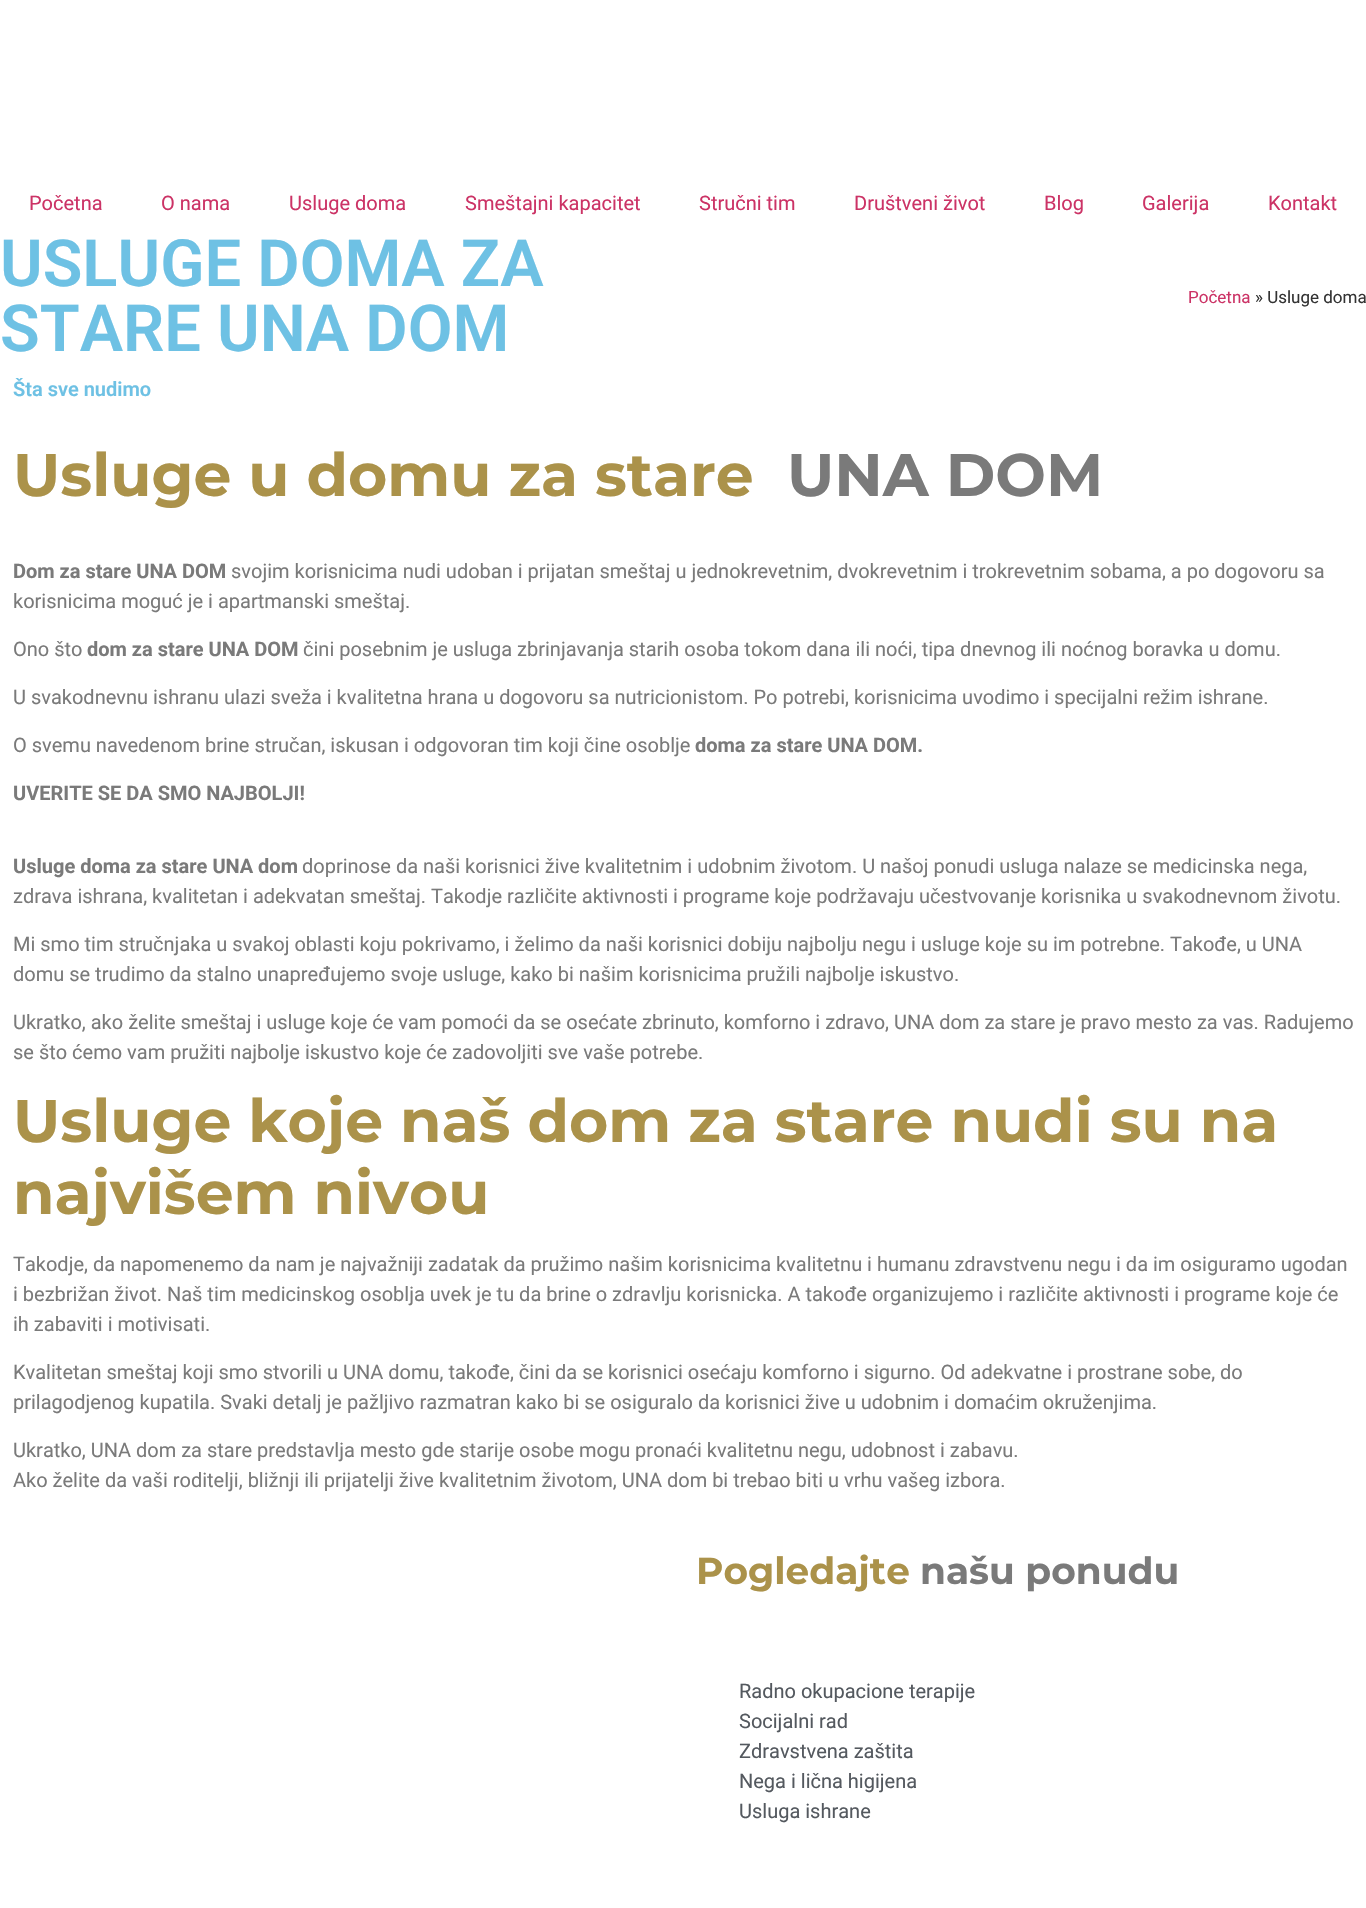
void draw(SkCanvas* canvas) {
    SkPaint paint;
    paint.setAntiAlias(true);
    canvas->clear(0xFFFFFFFF);
    SkFont font1(fontMgr->matchFamilyStyle("Roboto", SkFontStyle::Normal()), 20);
    font1.setSubpixel(true);
    paint.setColor(0xFFCC3366);
    canvas->drawString("Početna", 29, 210, font1, paint);
    canvas->drawString("O nama", 161, 210, font1, paint);
    canvas->drawString("Usluge doma", 289, 210, font1, paint);
    canvas->drawString("Smeštajni kapacitet", 465, 210, font1, paint);
    canvas->drawString("Stručni tim", 699, 210, font1, paint);
    canvas->drawString("Društveni život", 854, 210, font1, paint);
    canvas->drawString("Blog", 1044, 210, font1, paint);
    canvas->drawString("Galerija", 1142, 210, font1, paint);
    canvas->drawString("Kontakt", 1268, 210, font1, paint);
    SkFont font2(fontMgr->matchFamilyStyle("Roboto", SkFontStyle(600, SkFontStyle::kNormal_Width, SkFontStyle::kUpright_Slant)), 65);
    font2.setSubpixel(true);
    paint.setColor(0xFF6EC1E4);
    canvas->drawString("USLUGE DOMA ZA", 0, 286, font2, paint);
    canvas->drawString("STARE UNA DOM", 0, 351, font2, paint);
    SkFont font3(fontMgr->matchFamilyStyle("Roboto", SkFontStyle::Normal()), 17);
    font3.setSubpixel(true);
    paint.setColor(0xFFCC3366);
    canvas->drawString("Početna", 1188, 303, font3, paint);
    paint.setColor(0xFF333333);
    canvas->drawString("» Usluge doma", 1255, 303, font3, paint);
    SkFont font4(fontMgr->matchFamilyStyle("Roboto", SkFontStyle(600, SkFontStyle::kNormal_Width, SkFontStyle::kUpright_Slant)), 20);
    font4.setSubpixel(true);
    paint.setColor(0xFF6EC1E4);
    canvas->drawString("Šta sve nudimo", 13, 396, font4, paint);
    SkFont font5(fontMgr->matchFamilyStyle("Montserrat", SkFontStyle::Bold()), 60);
    font5.setSubpixel(true);
    paint.setColor(0xFFAB924A);
    canvas->drawString("Usluge u domu za stare", 13, 496, font5, paint);
    paint.setColor(0xFF7A7A7A);
    canvas->drawString("UNA DOM", 787, 496, font5, paint);
    SkFont font6(fontMgr->matchFamilyStyle("Roboto", SkFontStyle::Bold()), 20);
    font6.setSubpixel(true);
    canvas->drawString("Dom za stare UNA DOM", 13, 578, font6, paint);
    canvas->drawString("svojim korisnicima nudi udoban i prijatan smeštaj u jednokrevetnim, dvokrevetnim i trokrevetnim sobama, a po dogovoru sa", 231, 578, font1, paint);
    canvas->drawString("korisnicima moguć je i apartmanski smeštaj.", 13, 608, font1, paint);
    canvas->drawString("Ono što", 13, 656, font1, paint);
    canvas->drawString("dom za stare UNA DOM", 87, 656, font6, paint);
    canvas->drawString("čini posebnim je usluga zbrinjavanja starih osoba tokom dana ili noći, tipa dnevnog ili noćnog boravka u domu.", 303, 656, font1, paint);
    canvas->drawString("U svakodnevnu ishranu ulazi sveža i kvalitetna hrana u dogovoru sa nutricionistom. Po potrebi, korisnicima uvodimo i specijalni režim ishrane.", 13, 704, font1, paint);
    canvas->drawString("O svemu navedenom brine stručan, iskusan i odgovoran tim koji čine osoblje", 13, 752, font1, paint);
    canvas->drawString("doma za stare UNA DOM.", 695, 752, font6, paint);
    canvas->drawString("UVERITE SE DA SMO NAJBOLJI!", 13, 800, font6, paint);
    canvas->drawString("Usluge doma za stare UNA dom", 13, 873, font6, paint);
    canvas->drawString("doprinose da naši korisnici žive kvalitetnim i udobnim životom. U našoj ponudi usluga nalaze se medicinska nega,", 302, 873, font1, paint);
    canvas->drawString("zdrava ishrana, kvalitetan i adekvatan smeštaj. Takodje različite aktivnosti i programe koje podržavaju učestvovanje korisnika u svakodnevnom životu.", 13, 903, font1, paint);
    canvas->drawString("Mi smo tim stručnjaka u svakoj oblasti koju pokrivamo, i želimo da naši korisnici dobiju najbolju negu i usluge koje su im potrebne. Takođe, u UNA", 13, 951, font1, paint);
    canvas->drawString("domu se trudimo da stalno unapređujemo svoje usluge, kako bi našim korisnicima pružili najbolje iskustvo.", 13, 981, font1, paint);
    canvas->drawString("Ukratko, ako želite smeštaj i usluge koje će vam pomoći da se osećate zbrinuto, komforno i zdravo, UNA dom za stare je pravo mesto za vas. Radujemo", 13, 1029, font1, paint);
    canvas->drawString("se što ćemo vam pružiti najbolje iskustvo koje će zadovoljiti sve vaše potrebe.", 13, 1059, font1, paint);
    paint.setColor(0xFFAB924A);
    canvas->drawString("Usluge koje naš dom za stare nudi su na", 13, 1142, font5, paint);
    canvas->drawString("najvišem nivou", 13, 1214, font5, paint);
    paint.setColor(0xFF7A7A7A);
    canvas->drawString("Takodje, da napomenemo da nam je najvažniji zadatak da pružimo našim korisnicima kvalitetnu i humanu zdravstvenu negu i da im osiguramo ugodan", 13, 1271, font1, paint);
    canvas->drawString("i bezbrižan život. Naš tim medicinskog osoblja uvek je tu da brine o zdravlju korisnicka. A takođe organizujemo i različite aktivnosti i programe koje će", 13, 1301, font1, paint);
    canvas->drawString("ih zabaviti i motivisati.", 13, 1331, font1, paint);
    canvas->drawString("Kvalitetan smeštaj koji smo stvorili u UNA domu, takođe, čini da se korisnici osećaju komforno i sigurno. Od adekvatne i prostrane sobe, do", 13, 1379, font1, paint);
    canvas->drawString("prilagodjenog kupatila. Svaki detalj je pažljivo razmatran kako bi se osiguralo da korisnici žive u udobnim i domaćim okruženjima.", 13, 1409, font1, paint);
    canvas->drawString("Ukratko, UNA dom za stare predstavlja mesto gde starije osobe mogu pronaći kvalitetnu negu, udobnost i zabavu.", 13, 1457, font1, paint);
    canvas->drawString("Ako želite da vaši roditelji, bližnji ili prijatelji žive kvalitetnim životom, UNA dom bi trebao biti u vrhu vašeg izbora.", 13, 1487, font1, paint);
    SkFont font7(fontMgr->matchFamilyStyle("Montserrat", SkFontStyle::Bold()), 37.5f);
    font7.setSubpixel(true);
    paint.setColor(0xFFAB924A);
    canvas->drawString("Pogledajte", 696, 1584, font7, paint);
    paint.setColor(0xFF7A7A7A);
    canvas->drawString("našu ponudu", 920, 1584, font7, paint);
    paint.setColor(0xFF54595F);
    canvas->drawString("Radno okupacione terapije", 739, 1698, font1, paint);
    canvas->drawString("Socijalni rad", 739, 1728, font1, paint);
    canvas->drawString("Zdravstvena zaštita", 739, 1758, font1, paint);
    canvas->drawString("Nega i lična higijena", 739, 1788, font1, paint);
    canvas->drawString("Usluga ishrane", 739, 1818, font1, paint);
}
